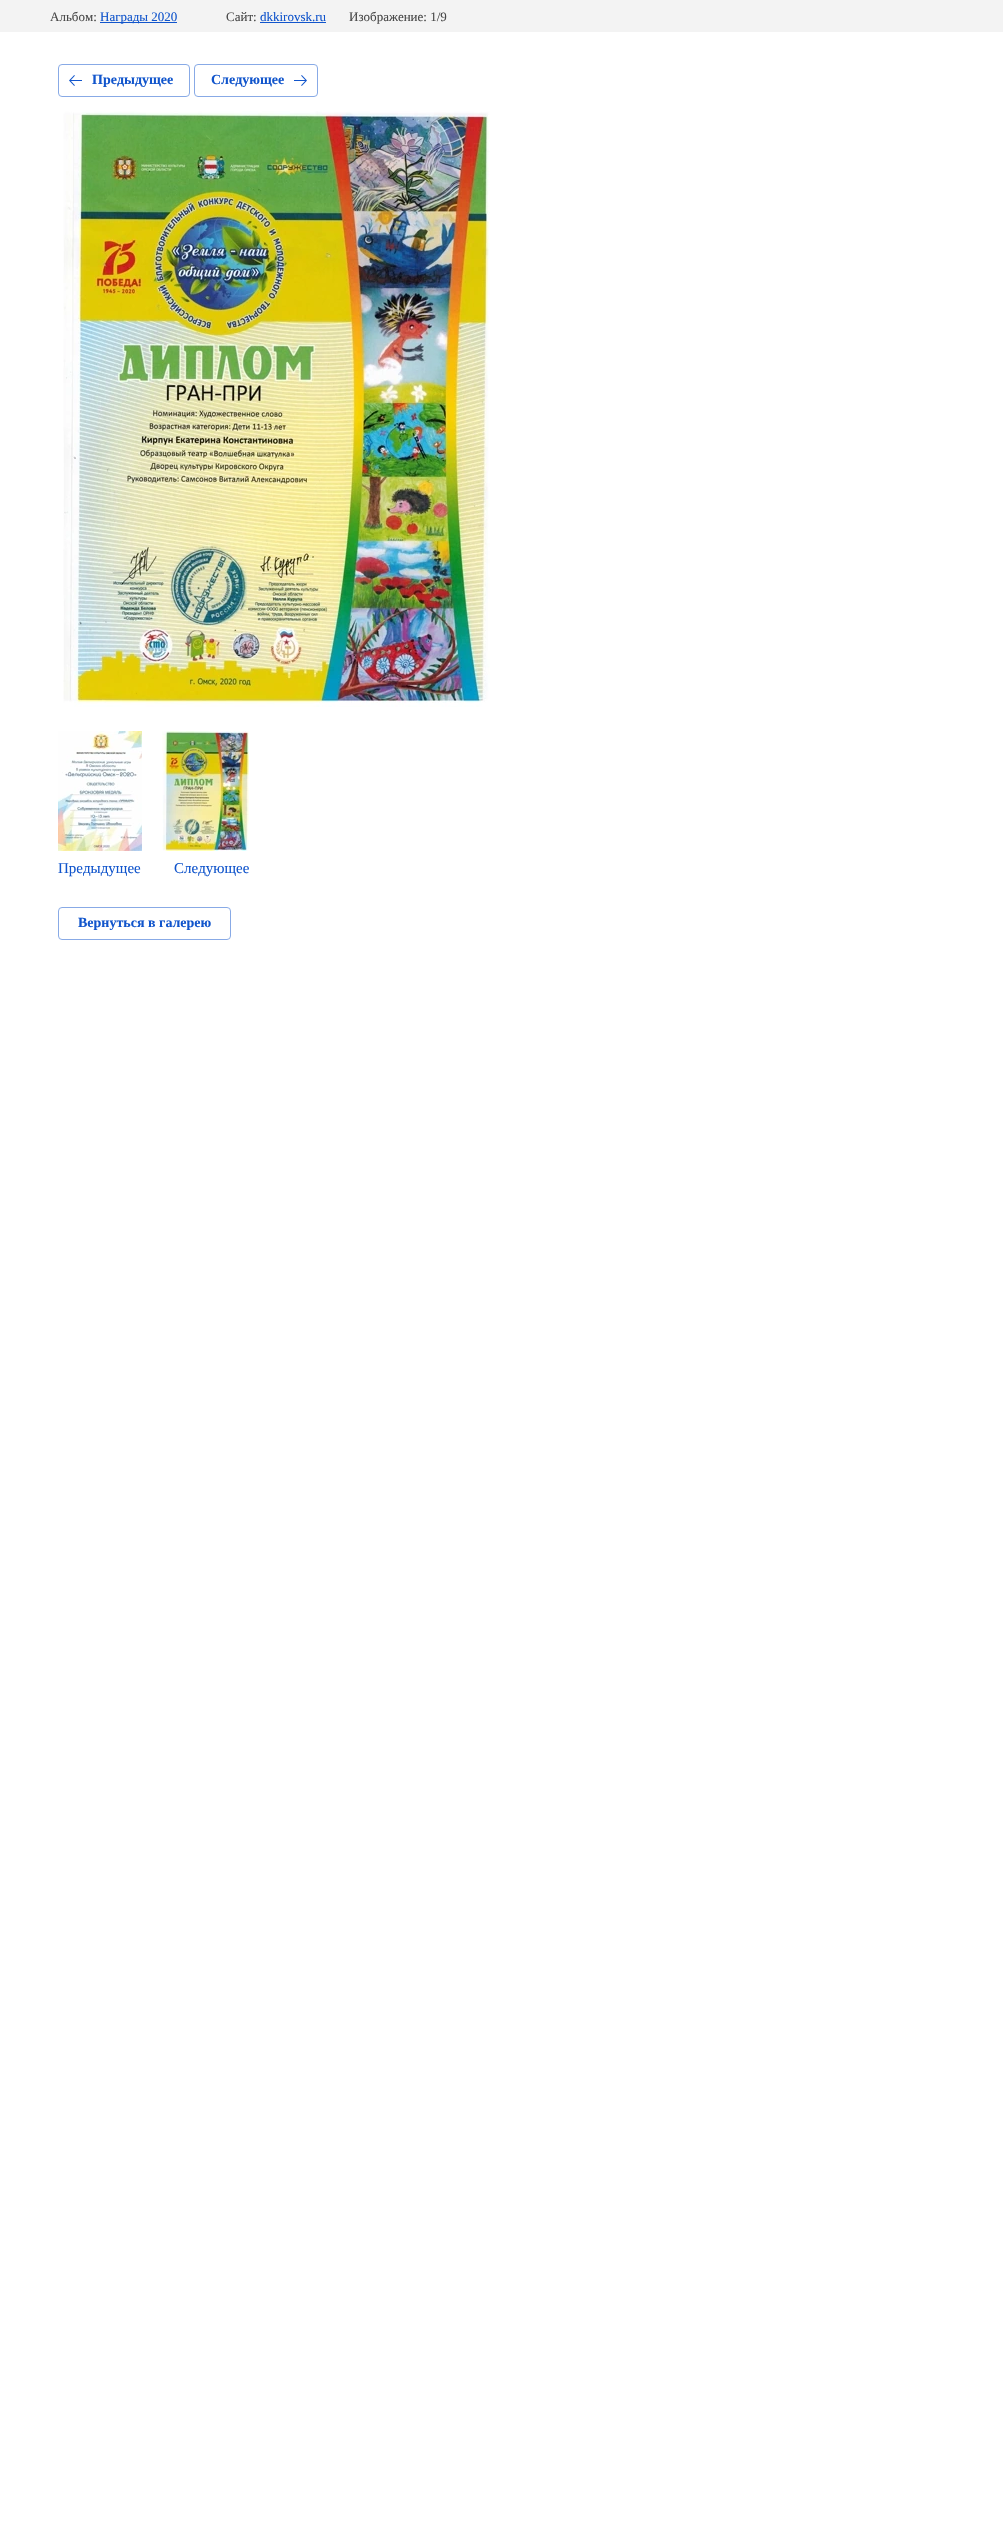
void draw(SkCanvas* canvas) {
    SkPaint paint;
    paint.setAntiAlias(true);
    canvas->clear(0xFFFFFFFF);
    paint.setColor(0xFFF3F3F3);
    canvas->drawRect(SkRect::MakeXYWH(0, 0, 1003, 32), paint);
    SkFont font1(fontMgr->matchFamilyStyle("Liberation Serif", SkFontStyle::Normal()), 13);
    font1.setSubpixel(true);
    paint.setColor(0xFF484848);
    canvas->drawString("Альбом:", 50, 21, font1, paint);
    paint.setColor(0xFF1155CC);
    canvas->drawRect(SkRect::MakeXYWH(100, 22, 77, 1), paint);
    canvas->drawString("Награды 2020", 100, 21, font1, paint);
    paint.setColor(0xFF484848);
    canvas->drawString("Сайт:", 226, 21, font1, paint);
    paint.setColor(0xFF1155CC);
    canvas->drawString("dkkirovsk.ru", 260, 21, font1, paint);
    canvas->drawRect(SkRect::MakeXYWH(260, 22, 66, 1), paint);
    paint.setColor(0xFF484848);
    canvas->drawString("Изображение: 1/9", 349, 21, font1, paint);
    paint.setStyle(SkPaint::kStroke_Style);
    paint.setStrokeWidth(1);
    paint.setColor(0xFF88AAE6);
    canvas->drawRoundRect(SkRect::MakeXYWH(58.5f, 64.5f, 131, 32), 3.5f, 3.5f, paint);
    canvas->drawImageRect(SkImages::DeferredFromEncodedData(SkData::MakeFromFileName("img1.png")), SkRect::MakeXYWH(69, 75, 13, 11), SkSamplingOptions());
    SkFont font2(fontMgr->matchFamilyStyle("Liberation Serif", SkFontStyle::Bold()), 14);
    font2.setSubpixel(true);
    paint.setStyle(SkPaint::kFill_Style);
    paint.setColor(0xFF1155CC);
    canvas->drawString("Предыдущее", 92, 84, font2, paint);
    paint.setStyle(SkPaint::kStroke_Style);
    paint.setColor(0xFF88AAE6);
    canvas->drawRoundRect(SkRect::MakeXYWH(194.5f, 64.5f, 123, 32), 3.5f, 3.5f, paint);
    paint.setStyle(SkPaint::kFill_Style);
    paint.setColor(0xFF1155CC);
    canvas->drawString("Следующее", 211, 84, font2, paint);
    canvas->drawImageRect(SkImages::DeferredFromEncodedData(SkData::MakeFromFileName("img2.png")), SkRect::MakeXYWH(294, 75, 13, 11), SkSamplingOptions());
    canvas->drawImageRect(SkImages::DeferredFromEncodedData(SkData::MakeFromFileName("img3.png")), SkRect::MakeXYWH(63, 111, 427, 596), SkSamplingOptions());
    canvas->drawImageRect(SkImages::DeferredFromEncodedData(SkData::MakeFromFileName("img4.png")), SkRect::MakeXYWH(58, 731, 84, 120), SkSamplingOptions());
    SkFont font3(fontMgr->matchFamilyStyle("Liberation Serif", SkFontStyle::Normal()), 15);
    font3.setSubpixel(true);
    canvas->drawString("Предыдущее", 58, 873, font3, paint);
    canvas->drawImageRect(SkImages::DeferredFromEncodedData(SkData::MakeFromFileName("img5.png")), SkRect::MakeXYWH(162, 731, 87, 120), SkSamplingOptions());
    canvas->drawString("Следующее", 174, 873, font3, paint);
    paint.setStyle(SkPaint::kStroke_Style);
    paint.setColor(0xFF88AAE6);
    canvas->drawRoundRect(SkRect::MakeXYWH(58.5f, 907.5f, 172, 32), 3.5f, 3.5f, paint);
    paint.setStyle(SkPaint::kFill_Style);
    paint.setColor(0xFF1155CC);
    canvas->drawString("Вернуться в галерею", 78, 927, font2, paint);
}
